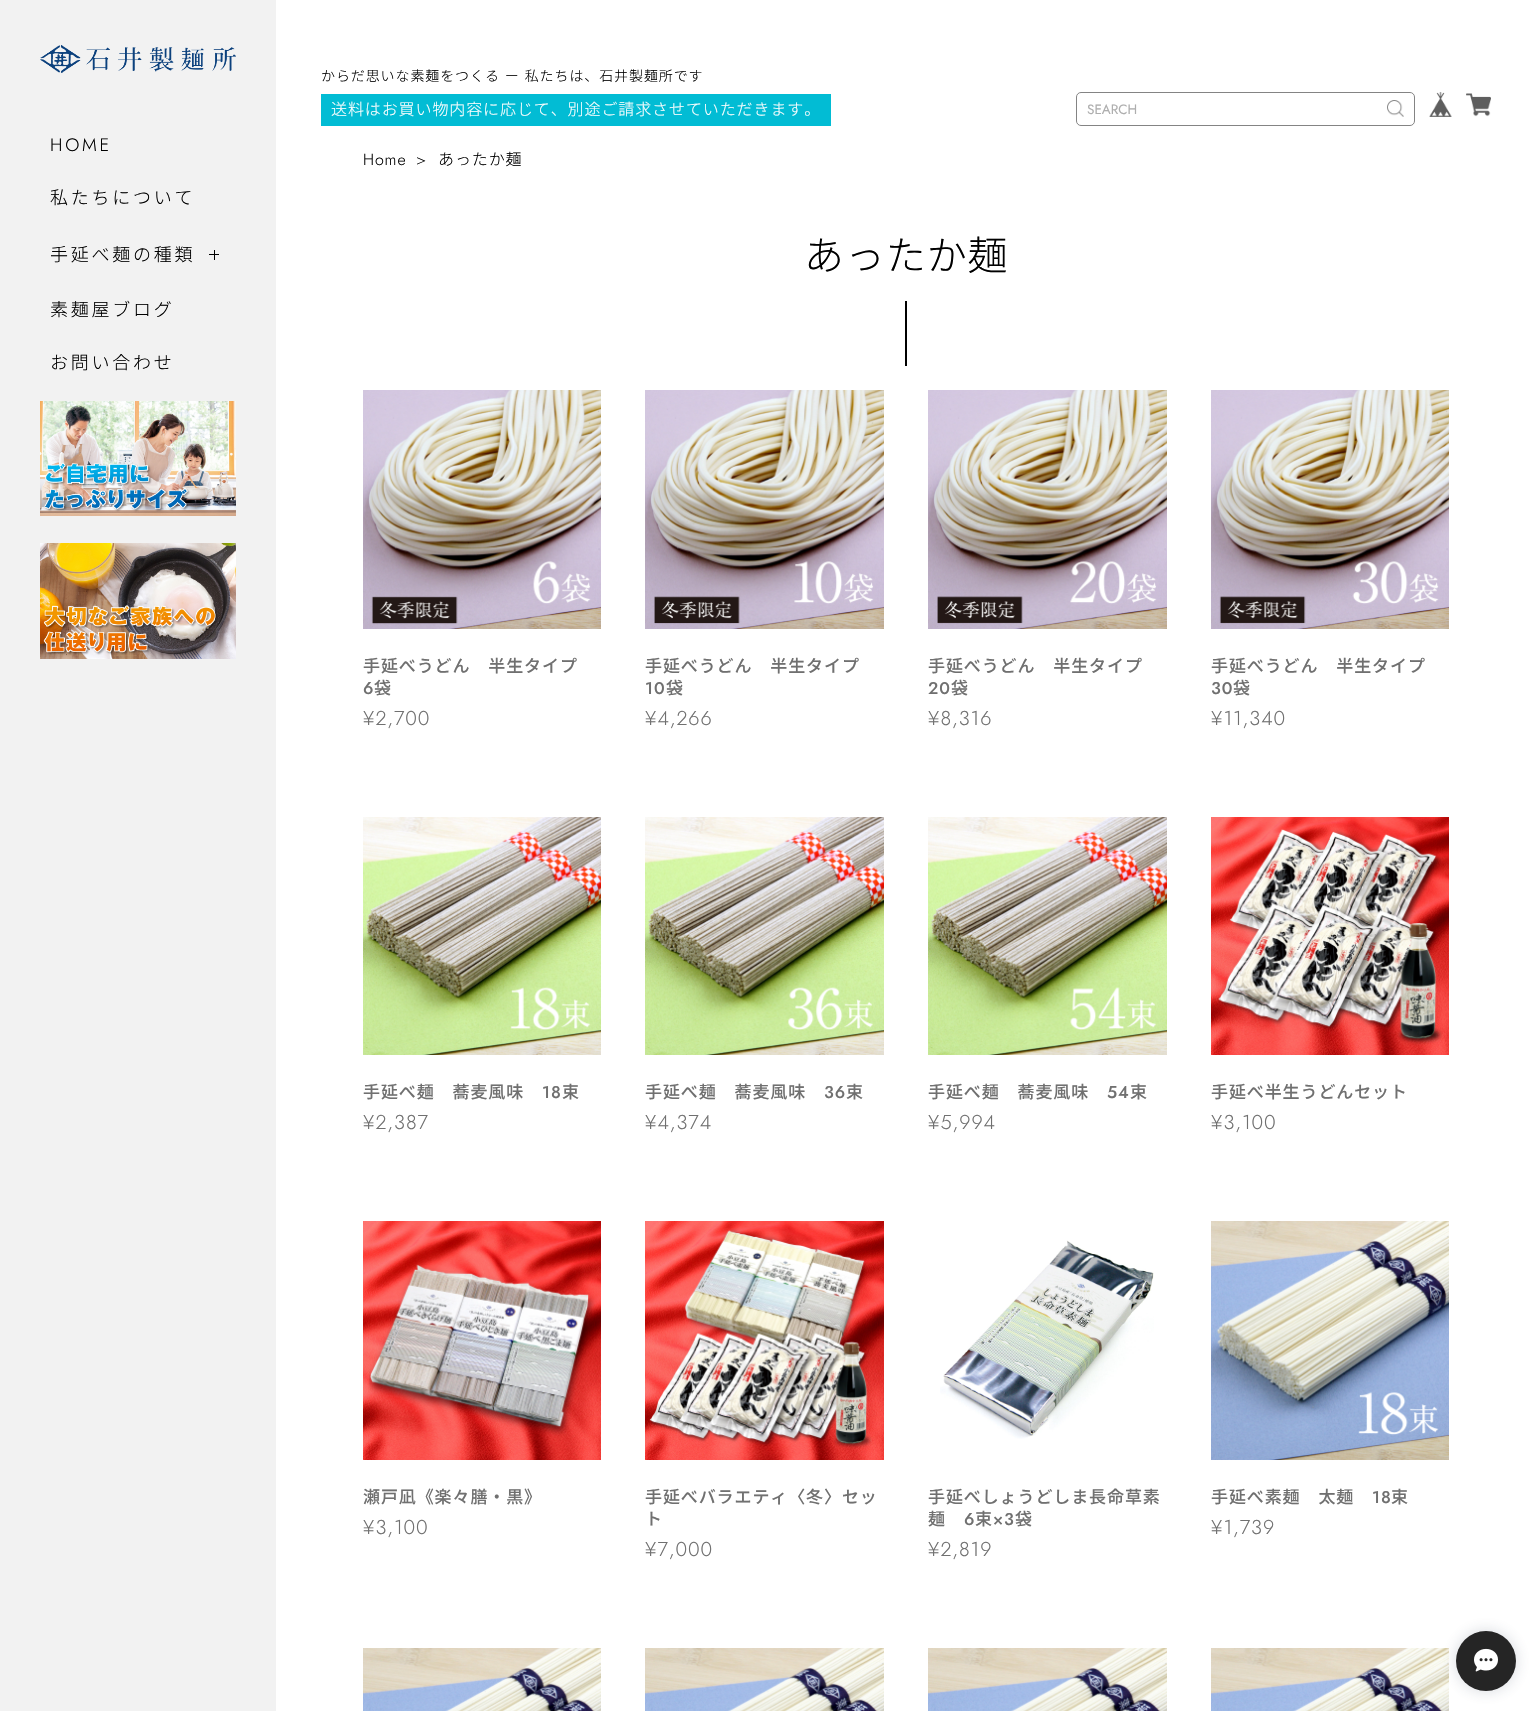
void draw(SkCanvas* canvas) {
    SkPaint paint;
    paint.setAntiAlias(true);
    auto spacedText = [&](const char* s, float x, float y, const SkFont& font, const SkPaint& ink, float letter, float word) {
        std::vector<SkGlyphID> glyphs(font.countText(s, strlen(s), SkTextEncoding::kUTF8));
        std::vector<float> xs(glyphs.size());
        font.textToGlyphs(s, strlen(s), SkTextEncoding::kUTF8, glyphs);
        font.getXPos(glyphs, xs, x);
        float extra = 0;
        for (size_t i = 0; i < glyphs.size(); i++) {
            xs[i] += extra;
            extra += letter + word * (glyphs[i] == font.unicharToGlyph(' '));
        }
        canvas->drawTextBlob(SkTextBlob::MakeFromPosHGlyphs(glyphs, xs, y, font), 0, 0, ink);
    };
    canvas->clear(0xFFFFFFFF);
    paint.setColor(0xFFF2F2F2);
    canvas->drawRect(SkRect::MakeXYWH(0, 0, 276, 1711), paint);
    canvas->drawImageRect(SkImages::DeferredFromEncodedData(SkData::MakeFromFileName("img1.png")), SkRect::MakeXYWH(40, 45, 196, 28), SkSamplingOptions());
    SkFont font1(fontMgr->matchFamilyStyle("Jost", SkFontStyle(300, SkFontStyle::kNormal_Width, SkFontStyle::kUpright_Slant)), 18);
    font1.setSubpixel(true);
    paint.setColor(0xFF000000);
    spacedText("HOME", 50, 151, font1, paint, 2.75f, 0);
    SkFont font2(fontMgr->matchFamilyStyle("Noto Sans JP", SkFontStyle(300, SkFontStyle::kNormal_Width, SkFontStyle::kUpright_Slant)), 18);
    font2.setSubpixel(true);
    spacedText("私たちについて", 50, 204, font2, paint, 2.75f, 0);
    spacedText("手延べ麺の種類", 50, 261, font2, paint, 2.75f, 0);
    canvas->drawRect(SkRect::MakeXYWH(214, 250, 1, 10), paint);
    canvas->drawRect(SkRect::MakeXYWH(209, 254, 10, 1), paint);
    spacedText("素麺屋ブログ", 50, 316, font2, paint, 2.75f, 0);
    spacedText("お問い合わせ", 50, 369, font2, paint, 2.75f, 0);
    canvas->drawImageRect(SkImages::DeferredFromEncodedData(SkData::MakeFromFileName("img2.png")), SkRect::MakeXYWH(40, 401, 196, 115), SkSamplingOptions());
    canvas->drawImageRect(SkImages::DeferredFromEncodedData(SkData::MakeFromFileName("img3.png")), SkRect::MakeXYWH(40, 543, 196, 116), SkSamplingOptions());
    SkFont font3(fontMgr->matchFamilyStyle("Noto Sans JP", SkFontStyle(300, SkFontStyle::kNormal_Width, SkFontStyle::kUpright_Slant)), 14);
    font3.setSubpixel(true);
    spacedText("からだ思いな素麺をつくる ー 私たちは、石井製麺所です", 321, 81, font3, paint, 0.9f, 1);
    paint.setColor(0xFF02BCD4);
    canvas->drawRect(SkRect::MakeXYWH(321, 94, 510, 32), paint);
    SkFont font4(fontMgr->matchFamilyStyle("Noto Sans JP", SkFontStyle(300, SkFontStyle::kNormal_Width, SkFontStyle::kUpright_Slant)), 16);
    font4.setSubpixel(true);
    paint.setColor(0xFFFFFFFF);
    spacedText("送料はお買い物内容に応じて、別途ご請求させていただきます。", 331, 115, font4, paint, 0.9f, 0);
    paint.setStyle(SkPaint::kStroke_Style);
    paint.setStrokeWidth(1);
    paint.setColor(0xFF848484);
    canvas->drawRoundRect(SkRect::MakeXYWH(1076.5f, 92.5f, 338, 33), 4.5f, 4.5f, paint);
    SkFont font5(fontMgr->matchFamilyStyle("Jost", SkFontStyle::Normal()), 13.5f);
    font5.setSubpixel(true);
    paint.setStyle(SkPaint::kFill_Style);
    paint.setColor(0xFFAEAEAE);
    canvas->drawString("SEARCH", 1087, 114, font5, paint);
    canvas->drawImageRect(SkImages::DeferredFromEncodedData(SkData::MakeFromFileName("img4.png")), SkRect::MakeXYWH(1387, 100, 17, 17), SkSamplingOptions());
    canvas->drawImageRect(SkImages::DeferredFromEncodedData(SkData::MakeFromFileName("img5.png")), SkRect::MakeXYWH(1429, 92, 23, 25), SkSamplingOptions());
    canvas->drawImageRect(SkImages::DeferredFromEncodedData(SkData::MakeFromFileName("img6.png")), SkRect::MakeXYWH(1466, 93, 25, 24), SkSamplingOptions());
    SkFont font6(fontMgr->matchFamilyStyle("Jost", SkFontStyle(300, SkFontStyle::kNormal_Width, SkFontStyle::kUpright_Slant)), 16);
    font6.setSubpixel(true);
    paint.setColor(0xFF000000);
    spacedText("Home", 363, 165, font6, paint, 0.9f, 0);
    spacedText(">", 416, 165, font6, paint, 0.9f, 0);
    spacedText("あったか麺", 438, 165, font4, paint, 0.9f, 0);
    SkFont font7(fontMgr->matchFamilyStyle("Noto Sans JP", SkFontStyle(300, SkFontStyle::kNormal_Width, SkFontStyle::kUpright_Slant)), 40);
    font7.setSubpixel(true);
    spacedText("あったか麺", 804, 270, font7, paint, 0.9f, 0);
    canvas->drawRect(SkRect::MakeXYWH(905, 301, 2, 65), paint);
    canvas->drawImageRect(SkImages::DeferredFromEncodedData(SkData::MakeFromFileName("img7.png")), SkRect::MakeXYWH(363, 390, 238, 239), SkSamplingOptions());
    SkFont font8(fontMgr->matchFamilyStyle("Noto Sans JP", SkFontStyle(500, SkFontStyle::kNormal_Width, SkFontStyle::kUpright_Slant)), 17);
    font8.setSubpixel(true);
    paint.setColor(0xFF707070);
    spacedText("手延べうどん　半生タイプ", 363, 672, font8, paint, 0.9f, 0);
    SkFont font9(fontMgr->matchFamilyStyle("Jost", SkFontStyle(500, SkFontStyle::kNormal_Width, SkFontStyle::kUpright_Slant)), 17);
    font9.setSubpixel(true);
    spacedText("6", 363, 694, font9, paint, 0.9f, 0);
    spacedText("袋", 374, 694, font8, paint, 0.9f, 0);
    SkFont font10(fontMgr->matchFamilyStyle("Jost", SkFontStyle(300, SkFontStyle::kNormal_Width, SkFontStyle::kUpright_Slant)), 20);
    font10.setSubpixel(true);
    spacedText("¥2,700", 363, 725, font10, paint, 0.9f, 0);
    canvas->drawImageRect(SkImages::DeferredFromEncodedData(SkData::MakeFromFileName("img8.png")), SkRect::MakeXYWH(645, 390, 239, 239), SkSamplingOptions());
    spacedText("手延べうどん　半生タイプ", 645, 672, font8, paint, 0.9f, 0);
    spacedText("10", 645, 694, font9, paint, 0.9f, 0);
    spacedText("袋", 666, 694, font8, paint, 0.9f, 0);
    spacedText("¥4,266", 645, 725, font10, paint, 0.9f, 0);
    canvas->drawImageRect(SkImages::DeferredFromEncodedData(SkData::MakeFromFileName("img9.png")), SkRect::MakeXYWH(928, 390, 239, 239), SkSamplingOptions());
    spacedText("手延べうどん　半生タイプ", 928, 672, font8, paint, 0.9f, 0);
    spacedText("20", 928, 694, font9, paint, 0.9f, 0);
    spacedText("袋", 951, 694, font8, paint, 0.9f, 0);
    spacedText("¥8,316", 928, 725, font10, paint, 0.9f, 0);
    canvas->drawImageRect(SkImages::DeferredFromEncodedData(SkData::MakeFromFileName("img10.png")), SkRect::MakeXYWH(1211, 390, 238, 239), SkSamplingOptions());
    spacedText("手延べうどん　半生タイプ", 1211, 672, font8, paint, 0.9f, 0);
    spacedText("30", 1211, 694, font9, paint, 0.9f, 0);
    spacedText("袋", 1233, 694, font8, paint, 0.9f, 0);
    spacedText("¥11,340", 1211, 725, font10, paint, 0.9f, 0);
    canvas->drawImageRect(SkImages::DeferredFromEncodedData(SkData::MakeFromFileName("img11.png")), SkRect::MakeXYWH(363, 817, 238, 238), SkSamplingOptions());
    spacedText("手延べ麺　蕎麦風味", 363, 1098, font8, paint, 0.9f, 0);
    spacedText("18", 542, 1098, font9, paint, 0.9f, 0);
    spacedText("束", 562, 1098, font8, paint, 0.9f, 0);
    spacedText("¥2,387", 363, 1129, font10, paint, 0.9f, 0);
    canvas->drawImageRect(SkImages::DeferredFromEncodedData(SkData::MakeFromFileName("img12.png")), SkRect::MakeXYWH(645, 817, 239, 238), SkSamplingOptions());
    spacedText("手延べ麺　蕎麦風味", 645, 1098, font8, paint, 0.9f, 0);
    spacedText("36", 824, 1098, font9, paint, 0.9f, 0);
    spacedText("束", 846, 1098, font8, paint, 0.9f, 0);
    spacedText("¥4,374", 645, 1129, font10, paint, 0.9f, 0);
    canvas->drawImageRect(SkImages::DeferredFromEncodedData(SkData::MakeFromFileName("img13.png")), SkRect::MakeXYWH(928, 817, 239, 238), SkSamplingOptions());
    spacedText("手延べ麺　蕎麦風味", 928, 1098, font8, paint, 0.9f, 0);
    spacedText("54", 1107, 1098, font9, paint, 0.9f, 0);
    spacedText("束", 1130, 1098, font8, paint, 0.9f, 0);
    spacedText("¥5,994", 928, 1129, font10, paint, 0.9f, 0);
    canvas->drawImageRect(SkImages::DeferredFromEncodedData(SkData::MakeFromFileName("img14.png")), SkRect::MakeXYWH(1211, 817, 238, 238), SkSamplingOptions());
    spacedText("手延べ半生うどんセット", 1211, 1098, font8, paint, 0.9f, 0);
    spacedText("¥3,100", 1211, 1129, font10, paint, 0.9f, 0);
    canvas->drawImageRect(SkImages::DeferredFromEncodedData(SkData::MakeFromFileName("img15.png")), SkRect::MakeXYWH(363, 1221, 238, 239), SkSamplingOptions());
    spacedText("瀬戸凪《楽々膳・黒》", 363, 1503, font8, paint, 0.9f, 0);
    spacedText("¥3,100", 363, 1534, font10, paint, 0.9f, 0);
    canvas->drawImageRect(SkImages::DeferredFromEncodedData(SkData::MakeFromFileName("img16.png")), SkRect::MakeXYWH(645, 1221, 239, 239), SkSamplingOptions());
    spacedText("手延べバラエティ〈冬〉セッ", 645, 1503, font8, paint, 0.9f, 0);
    spacedText("ト", 645, 1525, font8, paint, 0.9f, 0);
    spacedText("¥7,000", 645, 1556, font10, paint, 0.9f, 0);
    canvas->drawImageRect(SkImages::DeferredFromEncodedData(SkData::MakeFromFileName("img17.png")), SkRect::MakeXYWH(940, 1240, 214, 199), SkSamplingOptions());
    spacedText("手延べしょうどしま長命草素", 928, 1503, font8, paint, 0.9f, 0);
    spacedText("麺", 928, 1525, font8, paint, 0.9f, 0);
    spacedText("6", 964, 1525, font9, paint, 0.9f, 0);
    spacedText("束", 975, 1525, font8, paint, 0.9f, 0);
    spacedText("×3", 993, 1525, font9, paint, 0.9f, 0);
    spacedText("袋", 1015, 1525, font8, paint, 0.9f, 0);
    spacedText("¥2,819", 928, 1556, font10, paint, 0.9f, 0);
    canvas->drawImageRect(SkImages::DeferredFromEncodedData(SkData::MakeFromFileName("img18.png")), SkRect::MakeXYWH(1211, 1221, 238, 239), SkSamplingOptions());
    spacedText("手延べ素麺　太麺", 1211, 1503, font8, paint, 0.9f, 0);
    spacedText("18", 1372, 1503, font9, paint, 0.9f, 0);
    spacedText("束", 1391, 1503, font8, paint, 0.9f, 0);
    spacedText("¥1,739", 1211, 1534, font10, paint, 0.9f, 0);
    canvas->drawImageRect(SkImages::DeferredFromEncodedData(SkData::MakeFromFileName("img19.png")), SkRect::MakeXYWH(363, 1648, 238, 63), SkSamplingOptions());
    canvas->drawImageRect(SkImages::DeferredFromEncodedData(SkData::MakeFromFileName("img20.png")), SkRect::MakeXYWH(645, 1648, 239, 63), SkSamplingOptions());
    canvas->drawImageRect(SkImages::DeferredFromEncodedData(SkData::MakeFromFileName("img21.png")), SkRect::MakeXYWH(928, 1648, 239, 63), SkSamplingOptions());
    canvas->drawImageRect(SkImages::DeferredFromEncodedData(SkData::MakeFromFileName("img22.png")), SkRect::MakeXYWH(1211, 1648, 238, 63), SkSamplingOptions());
    paint.setColor(0x33334258);
    paint.setMaskFilter(SkMaskFilter::MakeBlur(kNormal_SkBlurStyle, 7.5f));
    canvas->drawRoundRect(SkRect::MakeXYWH(1456, 1631, 60, 60), 30, 30, paint);
    paint.setMaskFilter(nullptr);
    paint.setColor(0xFF252525);
    canvas->drawCircle(1486, 1661, 30, paint);
    canvas->drawImageRect(SkImages::DeferredFromEncodedData(SkData::MakeFromFileName("img23.png")), SkRect::MakeXYWH(1474, 1648, 24, 24), SkSamplingOptions());
}
